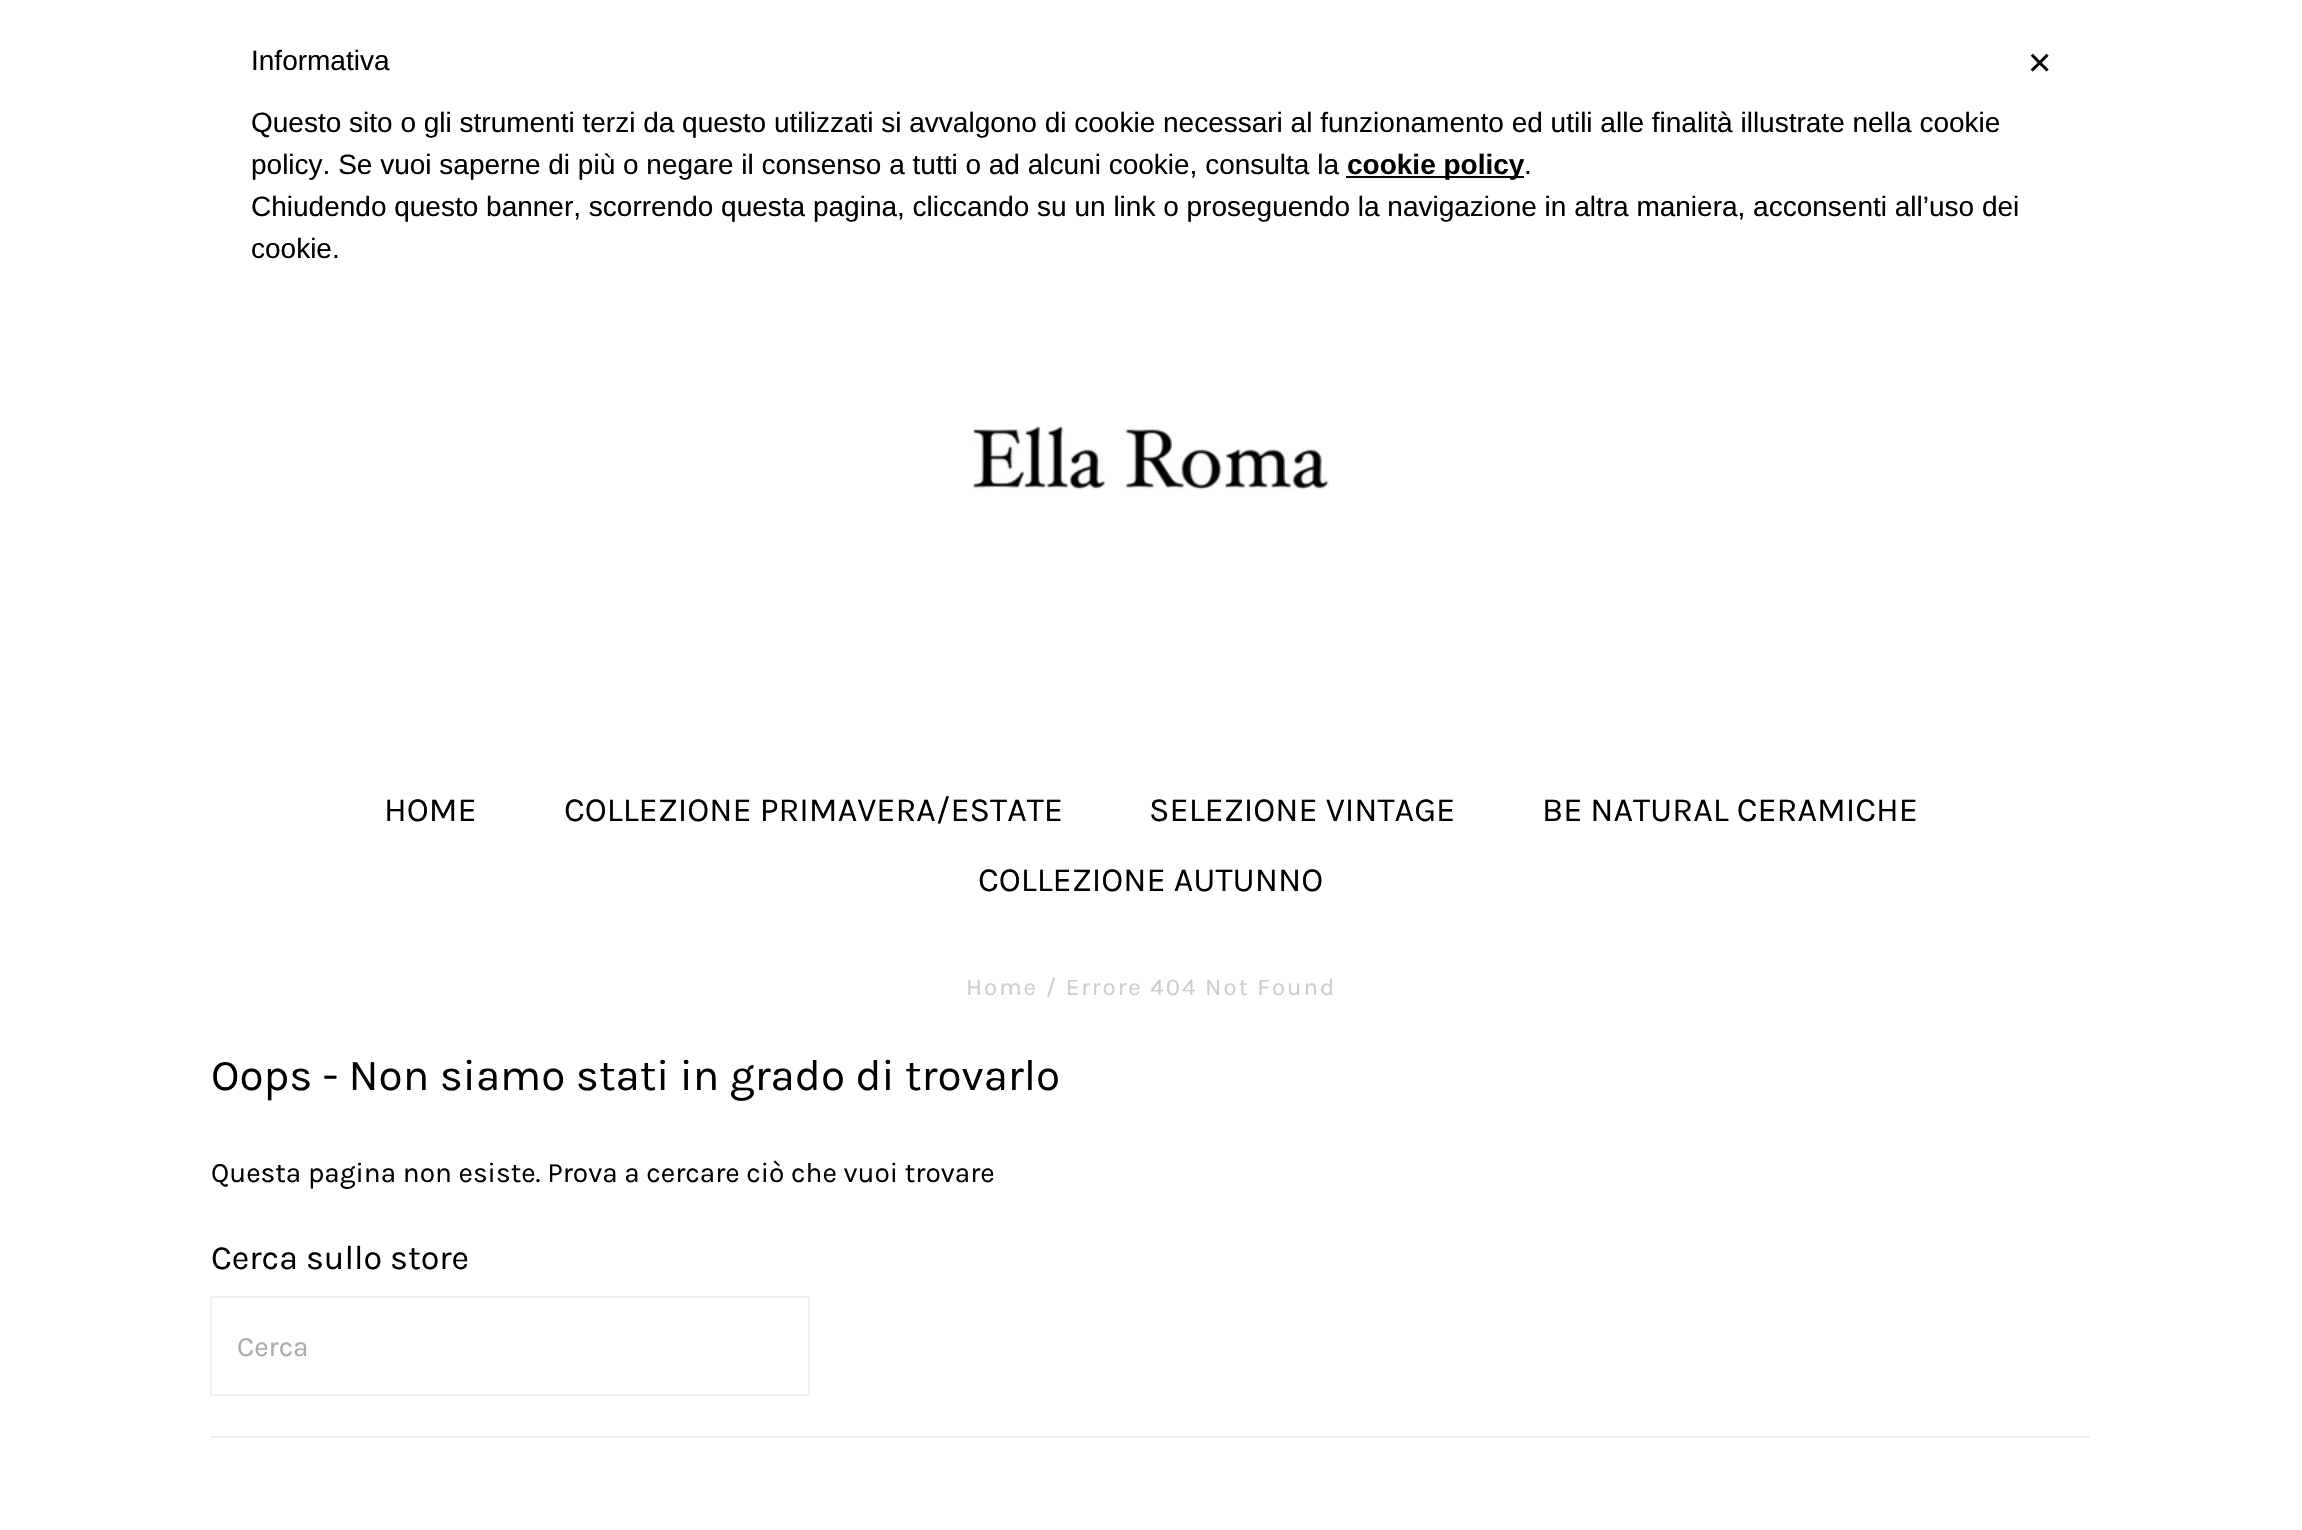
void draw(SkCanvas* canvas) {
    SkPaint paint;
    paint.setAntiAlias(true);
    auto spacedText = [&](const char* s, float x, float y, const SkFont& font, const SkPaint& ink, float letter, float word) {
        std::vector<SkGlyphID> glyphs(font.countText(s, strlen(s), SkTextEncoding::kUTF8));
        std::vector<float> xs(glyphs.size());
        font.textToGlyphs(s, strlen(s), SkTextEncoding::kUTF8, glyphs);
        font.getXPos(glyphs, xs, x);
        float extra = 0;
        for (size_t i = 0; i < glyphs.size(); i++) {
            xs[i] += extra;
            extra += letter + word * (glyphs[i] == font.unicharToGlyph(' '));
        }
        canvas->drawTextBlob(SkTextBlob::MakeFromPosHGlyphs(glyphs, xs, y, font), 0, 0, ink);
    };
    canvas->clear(0xFFFFFFFF);
    SkFont font1(fontMgr->matchFamilyStyle("Liberation Sans", SkFontStyle::Normal()), 28);
    font1.setSubpixel(true);
    paint.setColor(0xFF000000);
    canvas->drawString("Informativa", 251, 70, font1, paint);
    canvas->drawString("Questo sito o gli strumenti terzi da questo utilizzati si avvalgono di cookie necessari al funzionamento ed utili alle finalità illustrate nella cookie", 251, 132, font1, paint);
    canvas->drawString("policy. Se vuoi saperne di più o negare il consenso a tutti o ad alcuni cookie, consulta la", 251, 174, font1, paint);
    canvas->drawRect(SkRect::MakeXYWH(1346, 176, 178, 2), paint);
    SkFont font2(fontMgr->matchFamilyStyle("Liberation Sans", SkFontStyle::Bold()), 28);
    font2.setSubpixel(true);
    canvas->drawString("cookie policy", 1347, 174, font2, paint);
    canvas->drawString(".", 1524, 174, font1, paint);
    canvas->drawString("Chiudendo questo banner, scorrendo questa pagina, cliccando su un link o proseguendo la navigazione in altra maniera, acconsenti all’uso dei", 251, 216, font1, paint);
    canvas->drawString("cookie.", 251, 258, font1, paint);
    SkFont font3(fontMgr->matchFamilyStyle("Liberation Sans", SkFontStyle::Normal()), 40);
    font3.setSubpixel(true);
    canvas->drawString("×", 2028, 76, font3, paint);
    canvas->drawImageRect(SkImages::DeferredFromEncodedData(SkData::MakeFromFileName("img1.png")), SkRect::MakeXYWH(972, 426, 357, 64), SkSamplingOptions());
    SkFont font4(fontMgr->matchFamilyStyle("Karla", SkFontStyle::Normal()), 34);
    font4.setSubpixel(true);
    canvas->drawString("HOME", 384, 821, font4, paint);
    canvas->drawString("COLLEZIONE PRIMAVERA/ESTATE", 564, 821, font4, paint);
    canvas->drawString("SELEZIONE VINTAGE", 1149, 821, font4, paint);
    canvas->drawString("BE NATURAL CERAMICHE", 1542, 821, font4, paint);
    canvas->drawString("COLLEZIONE AUTUNNO", 978, 891, font4, paint);
    SkFont font5(fontMgr->matchFamilyStyle("Karla", SkFontStyle::Normal()), 24);
    font5.setSubpixel(true);
    paint.setColor(0xFFCCCCCC);
    spacedText("Home / Errore 404 Not Found", 966, 995, font5, paint, 2, 0);
    SkFont font6(fontMgr->matchFamilyStyle("Karla", SkFontStyle::Normal()), 44);
    font6.setSubpixel(true);
    paint.setColor(0xFF000000);
    canvas->drawString("Oops - Non siamo stati in grado di trovarlo", 211, 1090, font6, paint);
    SkFont font7(fontMgr->matchFamilyStyle("Karla", SkFontStyle::Normal()), 28);
    font7.setSubpixel(true);
    canvas->drawString("Questa pagina non esiste. Prova a cercare ciò che vuoi trovare", 211, 1182, font7, paint);
    paint.setColor(0xFFF0F0F0);
    canvas->drawRect(SkRect::MakeXYWH(210, 1436, 1880, 2), paint);
    paint.setColor(0xFF000000);
    canvas->drawString("Cerca sullo store", 211, 1269, font4, paint);
    paint.setStyle(SkPaint::kStroke_Style);
    paint.setStrokeWidth(2);
    paint.setColor(0xFFF0F0F0);
    canvas->drawRect(SkRect::MakeXYWH(211, 1297, 598, 98), paint);
    paint.setStyle(SkPaint::kFill_Style);
    paint.setColor(0xFFAAAAAA);
    canvas->drawString("Cerca", 237, 1356, font7, paint);
}
